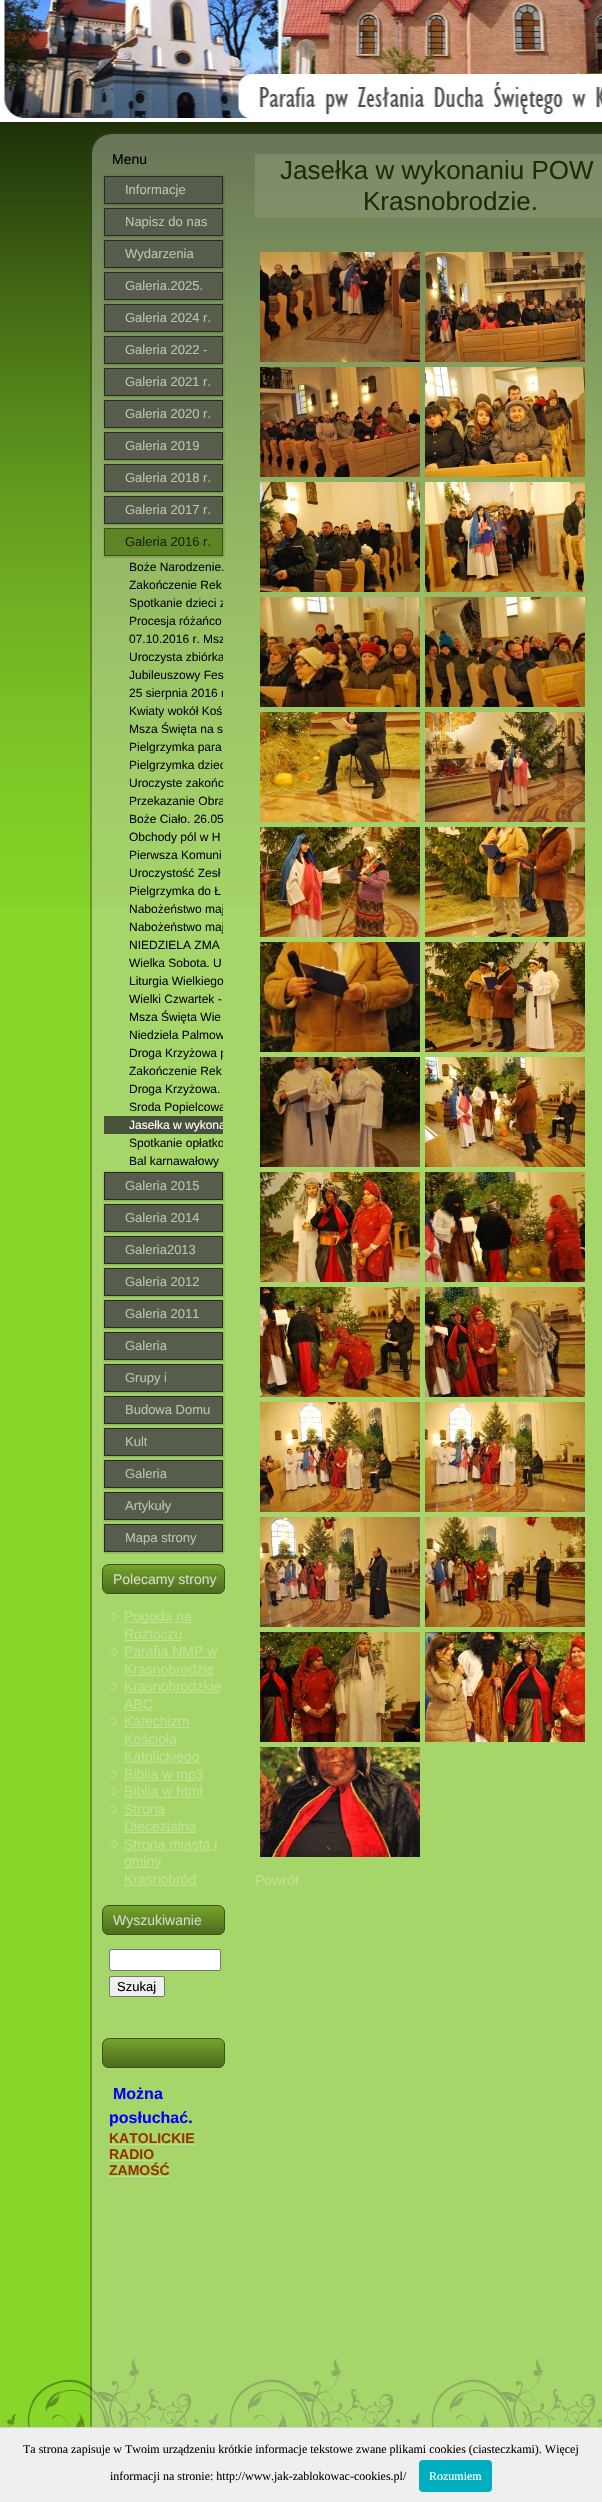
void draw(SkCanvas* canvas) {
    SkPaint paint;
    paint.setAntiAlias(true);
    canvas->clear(0xFF88D629);
    canvas->drawImageRect(SkImages::DeferredFromEncodedData(SkData::MakeFromFileName("img1.png")), SkRect::MakeXYWH(0, 122, 602, 784), SkSamplingOptions());
    canvas->drawImageRect(SkImages::DeferredFromEncodedData(SkData::MakeFromFileName("img2.png")), SkRect::MakeXYWH(7, 2358, 595, 69), SkSamplingOptions());
    canvas->drawImageRect(SkImages::DeferredFromEncodedData(SkData::MakeFromFileName("img3.png")), SkRect::MakeXYWH(0, 0, 602, 122), SkSamplingOptions());
    canvas->drawImageRect(SkImages::DeferredFromEncodedData(SkData::MakeFromFileName("img4.png")), SkRect::MakeXYWH(90, 132, 21, 21), SkSamplingOptions());
    canvas->drawImageRect(SkImages::DeferredFromEncodedData(SkData::MakeFromFileName("img5.png")), SkRect::MakeXYWH(111, 132, 491, 21), SkSamplingOptions());
    canvas->drawImageRect(SkImages::DeferredFromEncodedData(SkData::MakeFromFileName("img6.png")), SkRect::MakeXYWH(90, 153, 21, 2274), SkSamplingOptions());
    paint.setColor(0x66D2D4CA);
    canvas->drawRect(SkRect::MakeXYWH(111, 153, 491, 2274), paint);
    SkFont font1(fontMgr->matchFamilyStyle("Liberation Sans", SkFontStyle::Normal()), 14);
    font1.setSubpixel(true);
    paint.setColor(0xFF000000);
    canvas->drawString("Menu", 112, 164, font1, paint);
    canvas->drawImageRect(SkImages::DeferredFromEncodedData(SkData::MakeFromFileName("img7.png")), SkRect::MakeXYWH(103, 175, 117, 31), SkSamplingOptions());
    canvas->drawImageRect(SkImages::DeferredFromEncodedData(SkData::MakeFromFileName("img8.png")), SkRect::MakeXYWH(220, 175, 5, 31), SkSamplingOptions());
    SkFont font2(fontMgr->matchFamilyStyle("Liberation Sans", SkFontStyle::Normal()), 13);
    font2.setSubpixel(true);
    paint.setColor(0xFFBBC0B2);
    canvas->drawString("Informacje", 125, 194, font2, paint);
    canvas->drawImageRect(SkImages::DeferredFromEncodedData(SkData::MakeFromFileName("img9.png")), SkRect::MakeXYWH(103, 207, 117, 31), SkSamplingOptions());
    canvas->drawImageRect(SkImages::DeferredFromEncodedData(SkData::MakeFromFileName("img10.png")), SkRect::MakeXYWH(220, 207, 5, 31), SkSamplingOptions());
    canvas->drawString("Napisz do nas", 125, 226, font2, paint);
    canvas->drawImageRect(SkImages::DeferredFromEncodedData(SkData::MakeFromFileName("img11.png")), SkRect::MakeXYWH(103, 239, 117, 31), SkSamplingOptions());
    canvas->drawImageRect(SkImages::DeferredFromEncodedData(SkData::MakeFromFileName("img12.png")), SkRect::MakeXYWH(220, 239, 5, 31), SkSamplingOptions());
    canvas->drawString("Wydarzenia", 125, 258, font2, paint);
    canvas->drawImageRect(SkImages::DeferredFromEncodedData(SkData::MakeFromFileName("img13.png")), SkRect::MakeXYWH(103, 271, 117, 31), SkSamplingOptions());
    canvas->drawImageRect(SkImages::DeferredFromEncodedData(SkData::MakeFromFileName("img14.png")), SkRect::MakeXYWH(220, 271, 5, 31), SkSamplingOptions());
    canvas->drawString("Galeria.2025.", 125, 290, font2, paint);
    canvas->drawImageRect(SkImages::DeferredFromEncodedData(SkData::MakeFromFileName("img15.png")), SkRect::MakeXYWH(103, 303, 117, 31), SkSamplingOptions());
    canvas->drawImageRect(SkImages::DeferredFromEncodedData(SkData::MakeFromFileName("img16.png")), SkRect::MakeXYWH(220, 303, 5, 31), SkSamplingOptions());
    canvas->drawString("Galeria 2024 r.", 125, 322, font2, paint);
    canvas->drawImageRect(SkImages::DeferredFromEncodedData(SkData::MakeFromFileName("img17.png")), SkRect::MakeXYWH(103, 335, 117, 31), SkSamplingOptions());
    canvas->drawImageRect(SkImages::DeferredFromEncodedData(SkData::MakeFromFileName("img18.png")), SkRect::MakeXYWH(220, 335, 5, 31), SkSamplingOptions());
    canvas->drawString("Galeria 2022 -", 125, 354, font2, paint);
    canvas->drawImageRect(SkImages::DeferredFromEncodedData(SkData::MakeFromFileName("img19.png")), SkRect::MakeXYWH(103, 367, 117, 31), SkSamplingOptions());
    canvas->drawImageRect(SkImages::DeferredFromEncodedData(SkData::MakeFromFileName("img20.png")), SkRect::MakeXYWH(220, 367, 5, 31), SkSamplingOptions());
    canvas->drawString("Galeria 2021 r.", 125, 386, font2, paint);
    canvas->drawImageRect(SkImages::DeferredFromEncodedData(SkData::MakeFromFileName("img21.png")), SkRect::MakeXYWH(103, 399, 117, 31), SkSamplingOptions());
    canvas->drawImageRect(SkImages::DeferredFromEncodedData(SkData::MakeFromFileName("img22.png")), SkRect::MakeXYWH(220, 399, 5, 31), SkSamplingOptions());
    canvas->drawString("Galeria 2020 r.", 125, 418, font2, paint);
    canvas->drawImageRect(SkImages::DeferredFromEncodedData(SkData::MakeFromFileName("img23.png")), SkRect::MakeXYWH(103, 431, 117, 31), SkSamplingOptions());
    canvas->drawImageRect(SkImages::DeferredFromEncodedData(SkData::MakeFromFileName("img24.png")), SkRect::MakeXYWH(220, 431, 5, 31), SkSamplingOptions());
    canvas->drawString("Galeria 2019", 125, 450, font2, paint);
    canvas->drawImageRect(SkImages::DeferredFromEncodedData(SkData::MakeFromFileName("img25.png")), SkRect::MakeXYWH(103, 463, 117, 31), SkSamplingOptions());
    canvas->drawImageRect(SkImages::DeferredFromEncodedData(SkData::MakeFromFileName("img26.png")), SkRect::MakeXYWH(220, 463, 5, 31), SkSamplingOptions());
    canvas->drawString("Galeria 2018 r.", 125, 482, font2, paint);
    canvas->drawImageRect(SkImages::DeferredFromEncodedData(SkData::MakeFromFileName("img27.png")), SkRect::MakeXYWH(103, 495, 117, 31), SkSamplingOptions());
    canvas->drawImageRect(SkImages::DeferredFromEncodedData(SkData::MakeFromFileName("img28.png")), SkRect::MakeXYWH(220, 495, 5, 31), SkSamplingOptions());
    canvas->drawString("Galeria 2017 r.", 125, 514, font2, paint);
    canvas->drawImageRect(SkImages::DeferredFromEncodedData(SkData::MakeFromFileName("img29.png")), SkRect::MakeXYWH(103, 527, 117, 31), SkSamplingOptions());
    canvas->drawImageRect(SkImages::DeferredFromEncodedData(SkData::MakeFromFileName("img30.png")), SkRect::MakeXYWH(220, 527, 5, 31), SkSamplingOptions());
    paint.setColor(0xFF1D1F19);
    canvas->drawString("Galeria 2016 r.", 125, 546, font2, paint);
    SkFont font3(fontMgr->matchFamilyStyle("Liberation Sans", SkFontStyle::Normal()), 12);
    font3.setSubpixel(true);
    paint.setColor(0xFF090908);
    canvas->drawString("Boże Narodzenie.", 129, 571, font3, paint);
    canvas->drawString("Zakończenie Rek", 129, 589, font3, paint);
    canvas->save();
    canvas->clipRect(SkRect::MakeXYWH(104, 594, 119, 18));
    canvas->drawString("Spotkanie dzieci z", 129, 607, font3, paint);
    canvas->restore();
    canvas->drawString("Procesja różańco", 129, 625, font3, paint);
    canvas->save();
    canvas->clipRect(SkRect::MakeXYWH(104, 630, 119, 18));
    canvas->drawString("07.10.2016 r. Msz", 129, 643, font3, paint);
    canvas->restore();
    canvas->save();
    canvas->clipRect(SkRect::MakeXYWH(104, 648, 119, 18));
    canvas->drawString("Uroczysta zbiórka", 129, 661, font3, paint);
    canvas->restore();
    canvas->drawString("Jubileuszowy Fes", 129, 679, font3, paint);
    canvas->save();
    canvas->clipRect(SkRect::MakeXYWH(104, 684, 119, 18));
    canvas->drawString("25 sierpnia 2016 r", 129, 697, font3, paint);
    canvas->restore();
    canvas->drawString("Kwiaty wokół Koś", 129, 715, font3, paint);
    canvas->drawString("Msza Święta na s", 129, 733, font3, paint);
    canvas->drawString("Pielgrzymka para", 129, 751, font3, paint);
    canvas->save();
    canvas->clipRect(SkRect::MakeXYWH(104, 756, 119, 18));
    canvas->drawString("Pielgrzymka dziec", 129, 769, font3, paint);
    canvas->restore();
    canvas->drawString("Uroczyste zakońc", 129, 787, font3, paint);
    canvas->save();
    canvas->clipRect(SkRect::MakeXYWH(104, 792, 119, 18));
    canvas->drawString("Przekazanie Obra", 129, 805, font3, paint);
    canvas->restore();
    canvas->drawString("Boże Ciało. 26.05", 129, 823, font3, paint);
    canvas->drawString("Obchody pól w H", 129, 841, font3, paint);
    canvas->drawString("Pierwsza Komuni", 129, 859, font3, paint);
    canvas->drawString("Uroczystość Zesł", 129, 877, font3, paint);
    canvas->drawString("Pielgrzymka do Ł", 129, 895, font3, paint);
    canvas->save();
    canvas->clipRect(SkRect::MakeXYWH(104, 900, 119, 18));
    canvas->drawString("Nabożeństwo maj", 129, 913, font3, paint);
    canvas->restore();
    canvas->save();
    canvas->clipRect(SkRect::MakeXYWH(104, 918, 119, 18));
    canvas->drawString("Nabożeństwo maj", 129, 931, font3, paint);
    canvas->restore();
    canvas->drawString("NIEDZIELA ZMA", 129, 949, font3, paint);
    canvas->drawString("Wielka Sobota. U", 129, 967, font3, paint);
    canvas->drawString("Liturgia Wielkiego", 129, 985, font3, paint);
    canvas->drawString("Wielki Czwartek -", 129, 1003, font3, paint);
    canvas->drawString("Msza Święta Wie", 129, 1021, font3, paint);
    canvas->save();
    canvas->clipRect(SkRect::MakeXYWH(104, 1026, 119, 18));
    canvas->drawString("Niedziela Palmow", 129, 1039, font3, paint);
    canvas->restore();
    canvas->save();
    canvas->clipRect(SkRect::MakeXYWH(104, 1044, 119, 18));
    canvas->drawString("Droga Krzyżowa p", 129, 1057, font3, paint);
    canvas->restore();
    canvas->drawString("Zakończenie Rek", 129, 1075, font3, paint);
    canvas->drawString("Droga Krzyżowa.", 129, 1093, font3, paint);
    canvas->save();
    canvas->clipRect(SkRect::MakeXYWH(104, 1098, 119, 18));
    canvas->drawString("Sroda Popielcowa", 129, 1111, font3, paint);
    canvas->restore();
    paint.setColor(0xFF48513C);
    canvas->drawRect(SkRect::MakeXYWH(104, 1116, 119, 18), paint);
    canvas->save();
    canvas->clipRect(SkRect::MakeXYWH(104, 1116, 119, 18));
    paint.setColor(0xFFFFFFFF);
    canvas->drawString("Jasełka w wykona", 129, 1129, font3, paint);
    canvas->restore();
    canvas->save();
    canvas->clipRect(SkRect::MakeXYWH(104, 1134, 119, 18));
    paint.setColor(0xFF090908);
    canvas->drawString("Spotkanie opłatko", 129, 1147, font3, paint);
    canvas->restore();
    canvas->drawString("Bal karnawałowy", 129, 1165, font3, paint);
    canvas->drawImageRect(SkImages::DeferredFromEncodedData(SkData::MakeFromFileName("img31.png")), SkRect::MakeXYWH(103, 1171, 117, 31), SkSamplingOptions());
    canvas->drawImageRect(SkImages::DeferredFromEncodedData(SkData::MakeFromFileName("img32.png")), SkRect::MakeXYWH(220, 1171, 5, 31), SkSamplingOptions());
    paint.setColor(0xFFBBC0B2);
    canvas->drawString("Galeria 2015", 125, 1190, font2, paint);
    canvas->drawImageRect(SkImages::DeferredFromEncodedData(SkData::MakeFromFileName("img31.png")), SkRect::MakeXYWH(103, 1203, 117, 31), SkSamplingOptions());
    canvas->drawImageRect(SkImages::DeferredFromEncodedData(SkData::MakeFromFileName("img32.png")), SkRect::MakeXYWH(220, 1203, 5, 31), SkSamplingOptions());
    canvas->drawString("Galeria 2014", 125, 1222, font2, paint);
    canvas->drawImageRect(SkImages::DeferredFromEncodedData(SkData::MakeFromFileName("img31.png")), SkRect::MakeXYWH(103, 1235, 117, 31), SkSamplingOptions());
    canvas->drawImageRect(SkImages::DeferredFromEncodedData(SkData::MakeFromFileName("img32.png")), SkRect::MakeXYWH(220, 1235, 5, 31), SkSamplingOptions());
    canvas->drawString("Galeria2013", 125, 1254, font2, paint);
    canvas->drawImageRect(SkImages::DeferredFromEncodedData(SkData::MakeFromFileName("img31.png")), SkRect::MakeXYWH(103, 1267, 117, 31), SkSamplingOptions());
    canvas->drawImageRect(SkImages::DeferredFromEncodedData(SkData::MakeFromFileName("img32.png")), SkRect::MakeXYWH(220, 1267, 5, 31), SkSamplingOptions());
    canvas->drawString("Galeria 2012", 125, 1286, font2, paint);
    canvas->drawImageRect(SkImages::DeferredFromEncodedData(SkData::MakeFromFileName("img31.png")), SkRect::MakeXYWH(103, 1299, 117, 31), SkSamplingOptions());
    canvas->drawImageRect(SkImages::DeferredFromEncodedData(SkData::MakeFromFileName("img32.png")), SkRect::MakeXYWH(220, 1299, 5, 31), SkSamplingOptions());
    canvas->drawString("Galeria 2011", 125, 1318, font2, paint);
    canvas->drawImageRect(SkImages::DeferredFromEncodedData(SkData::MakeFromFileName("img31.png")), SkRect::MakeXYWH(103, 1331, 117, 31), SkSamplingOptions());
    canvas->drawImageRect(SkImages::DeferredFromEncodedData(SkData::MakeFromFileName("img32.png")), SkRect::MakeXYWH(220, 1331, 5, 31), SkSamplingOptions());
    canvas->drawString("Galeria", 125, 1350, font2, paint);
    canvas->drawImageRect(SkImages::DeferredFromEncodedData(SkData::MakeFromFileName("img31.png")), SkRect::MakeXYWH(103, 1363, 117, 31), SkSamplingOptions());
    canvas->drawImageRect(SkImages::DeferredFromEncodedData(SkData::MakeFromFileName("img32.png")), SkRect::MakeXYWH(220, 1363, 5, 31), SkSamplingOptions());
    canvas->drawString("Grupy i", 125, 1382, font2, paint);
    canvas->drawImageRect(SkImages::DeferredFromEncodedData(SkData::MakeFromFileName("img31.png")), SkRect::MakeXYWH(103, 1395, 117, 31), SkSamplingOptions());
    canvas->drawImageRect(SkImages::DeferredFromEncodedData(SkData::MakeFromFileName("img32.png")), SkRect::MakeXYWH(220, 1395, 5, 31), SkSamplingOptions());
    canvas->drawString("Budowa Domu", 125, 1414, font2, paint);
    canvas->drawImageRect(SkImages::DeferredFromEncodedData(SkData::MakeFromFileName("img31.png")), SkRect::MakeXYWH(103, 1427, 117, 31), SkSamplingOptions());
    canvas->drawImageRect(SkImages::DeferredFromEncodedData(SkData::MakeFromFileName("img32.png")), SkRect::MakeXYWH(220, 1427, 5, 31), SkSamplingOptions());
    canvas->drawString("Kult", 125, 1446, font2, paint);
    canvas->drawImageRect(SkImages::DeferredFromEncodedData(SkData::MakeFromFileName("img31.png")), SkRect::MakeXYWH(103, 1459, 117, 31), SkSamplingOptions());
    canvas->drawImageRect(SkImages::DeferredFromEncodedData(SkData::MakeFromFileName("img32.png")), SkRect::MakeXYWH(220, 1459, 5, 31), SkSamplingOptions());
    canvas->drawString("Galeria", 125, 1478, font2, paint);
    canvas->drawImageRect(SkImages::DeferredFromEncodedData(SkData::MakeFromFileName("img31.png")), SkRect::MakeXYWH(103, 1491, 117, 31), SkSamplingOptions());
    canvas->drawImageRect(SkImages::DeferredFromEncodedData(SkData::MakeFromFileName("img32.png")), SkRect::MakeXYWH(220, 1491, 5, 31), SkSamplingOptions());
    canvas->drawString("Artykuły", 125, 1510, font2, paint);
    canvas->drawImageRect(SkImages::DeferredFromEncodedData(SkData::MakeFromFileName("img31.png")), SkRect::MakeXYWH(103, 1523, 117, 31), SkSamplingOptions());
    canvas->drawImageRect(SkImages::DeferredFromEncodedData(SkData::MakeFromFileName("img32.png")), SkRect::MakeXYWH(220, 1523, 5, 31), SkSamplingOptions());
    canvas->drawString("Mapa strony", 125, 1542, font2, paint);
    canvas->drawImageRect(SkImages::DeferredFromEncodedData(SkData::MakeFromFileName("img33.png")), SkRect::MakeXYWH(102, 1564, 116, 30), SkSamplingOptions());
    canvas->drawImageRect(SkImages::DeferredFromEncodedData(SkData::MakeFromFileName("img34.png")), SkRect::MakeXYWH(218, 1564, 7, 30), SkSamplingOptions());
    paint.setColor(0xFFD3D9CC);
    canvas->drawString("Polecamy strony", 113, 1584, font1, paint);
    canvas->drawImageRect(SkImages::DeferredFromEncodedData(SkData::MakeFromFileName("img35.png")), SkRect::MakeXYWH(109, 1612, 9, 9), SkSamplingOptions());
    paint.setColor(0xFFC1E291);
    canvas->drawRect(SkRect::MakeXYWH(124, 1622, 68, 1), paint);
    canvas->drawString("Pogoda na", 124, 1621, font1, paint);
    canvas->drawString("Roztoczu", 124, 1639, font1, paint);
    canvas->drawRect(SkRect::MakeXYWH(124, 1640, 58, 1), paint);
    canvas->drawImageRect(SkImages::DeferredFromEncodedData(SkData::MakeFromFileName("img35.png")), SkRect::MakeXYWH(109, 1647, 9, 9), SkSamplingOptions());
    canvas->drawString("Parafia NMP w", 124, 1656, font1, paint);
    canvas->drawRect(SkRect::MakeXYWH(124, 1657, 93, 1), paint);
    canvas->drawString("Krasnobrodzie", 124, 1674, font1, paint);
    canvas->drawRect(SkRect::MakeXYWH(124, 1675, 90, 1), paint);
    canvas->drawImageRect(SkImages::DeferredFromEncodedData(SkData::MakeFromFileName("img35.png")), SkRect::MakeXYWH(109, 1682, 9, 9), SkSamplingOptions());
    canvas->drawString("Krasnobrodzkie", 124, 1691, font1, paint);
    canvas->drawRect(SkRect::MakeXYWH(124, 1692, 97, 1), paint);
    canvas->drawString("ABC", 124, 1709, font1, paint);
    canvas->drawRect(SkRect::MakeXYWH(124, 1710, 29, 1), paint);
    canvas->drawImageRect(SkImages::DeferredFromEncodedData(SkData::MakeFromFileName("img35.png")), SkRect::MakeXYWH(109, 1717, 9, 9), SkSamplingOptions());
    canvas->drawString("Katechizm", 124, 1726, font1, paint);
    canvas->drawRect(SkRect::MakeXYWH(124, 1727, 65, 1), paint);
    canvas->drawString("Kościoła", 124, 1744, font1, paint);
    canvas->drawRect(SkRect::MakeXYWH(124, 1745, 53, 1), paint);
    canvas->drawRect(SkRect::MakeXYWH(124, 1762, 76, 1), paint);
    canvas->drawString("Katolickiego", 124, 1761, font1, paint);
    canvas->drawImageRect(SkImages::DeferredFromEncodedData(SkData::MakeFromFileName("img35.png")), SkRect::MakeXYWH(109, 1770, 9, 9), SkSamplingOptions());
    canvas->drawRect(SkRect::MakeXYWH(124, 1780, 79, 1), paint);
    canvas->drawString("Biblia w mp3", 124, 1779, font1, paint);
    canvas->drawImageRect(SkImages::DeferredFromEncodedData(SkData::MakeFromFileName("img35.png")), SkRect::MakeXYWH(109, 1787, 9, 9), SkSamplingOptions());
    canvas->drawString("Biblia w html", 124, 1796, font1, paint);
    canvas->drawRect(SkRect::MakeXYWH(124, 1797, 79, 1), paint);
    canvas->drawImageRect(SkImages::DeferredFromEncodedData(SkData::MakeFromFileName("img35.png")), SkRect::MakeXYWH(109, 1805, 9, 9), SkSamplingOptions());
    canvas->drawString("Strona", 124, 1814, font1, paint);
    canvas->drawRect(SkRect::MakeXYWH(124, 1815, 41, 1), paint);
    canvas->drawRect(SkRect::MakeXYWH(124, 1832, 72, 1), paint);
    canvas->drawString("Diecezjalna", 124, 1831, font1, paint);
    canvas->drawImageRect(SkImages::DeferredFromEncodedData(SkData::MakeFromFileName("img35.png")), SkRect::MakeXYWH(109, 1840, 9, 9), SkSamplingOptions());
    canvas->drawString("Strona miasta i", 124, 1849, font1, paint);
    canvas->drawRect(SkRect::MakeXYWH(124, 1850, 93, 1), paint);
    canvas->drawRect(SkRect::MakeXYWH(124, 1867, 37, 1), paint);
    canvas->drawString("gminy", 124, 1866, font1, paint);
    canvas->drawString("Krasnobród", 124, 1884, font1, paint);
    canvas->drawRect(SkRect::MakeXYWH(124, 1885, 72, 1), paint);
    canvas->drawImageRect(SkImages::DeferredFromEncodedData(SkData::MakeFromFileName("img33.png")), SkRect::MakeXYWH(102, 1905, 116, 30), SkSamplingOptions());
    canvas->drawImageRect(SkImages::DeferredFromEncodedData(SkData::MakeFromFileName("img34.png")), SkRect::MakeXYWH(218, 1905, 7, 30), SkSamplingOptions());
    paint.setColor(0xFFD3D9CC);
    canvas->drawString("Wyszukiwanie", 113, 1925, font1, paint);
    paint.setColor(0xFFFFFFFF);
    canvas->drawRoundRect(SkRect::MakeXYWH(109.5f, 1949.5f, 111, 21), 1.5f, 1.5f, paint);
    paint.setStyle(SkPaint::kStroke_Style);
    paint.setStrokeWidth(1);
    paint.setColor(0xFF767676);
    canvas->drawRoundRect(SkRect::MakeXYWH(109.5f, 1949.5f, 111, 21), 1.5f, 1.5f, paint);
    paint.setStyle(SkPaint::kFill_Style);
    paint.setColor(0xFFEFEFEF);
    canvas->drawRoundRect(SkRect::MakeXYWH(109.5f, 1976.5f, 55, 20), 1.5f, 1.5f, paint);
    paint.setStyle(SkPaint::kStroke_Style);
    paint.setColor(0xFF767676);
    canvas->drawRoundRect(SkRect::MakeXYWH(109.5f, 1976.5f, 55, 20), 1.5f, 1.5f, paint);
    paint.setStyle(SkPaint::kFill_Style);
    paint.setColor(0xFF000000);
    canvas->drawString("Szukaj", 117, 1991, font2, paint);
    canvas->drawImageRect(SkImages::DeferredFromEncodedData(SkData::MakeFromFileName("img33.png")), SkRect::MakeXYWH(102, 2038, 116, 30), SkSamplingOptions());
    canvas->drawImageRect(SkImages::DeferredFromEncodedData(SkData::MakeFromFileName("img34.png")), SkRect::MakeXYWH(218, 2038, 7, 30), SkSamplingOptions());
    SkFont font4(fontMgr->matchFamilyStyle("Liberation Sans", SkFontStyle::Bold()), 16);
    font4.setSubpixel(true);
    paint.setColor(0xFF0000FF);
    canvas->drawString("Można", 113, 2099, font4, paint);
    canvas->drawString("posłuchać.", 109, 2123, font4, paint);
    SkFont font5(fontMgr->matchFamilyStyle("Liberation Sans", SkFontStyle::Bold()), 14);
    font5.setSubpixel(true);
    paint.setColor(0xFF993300);
    canvas->drawString("KATOLICKIE", 109, 2143, font5, paint);
    paint.setColor(0xFFC1E291);
    canvas->drawRect(SkRect::MakeXYWH(109, 2144, 86, 1), paint);
    paint.setColor(0xFF993300);
    canvas->drawString("RADIO", 109, 2159, font5, paint);
    paint.setColor(0xFFC1E291);
    canvas->drawRect(SkRect::MakeXYWH(109, 2160, 45, 1), paint);
    paint.setColor(0xFF993300);
    canvas->drawString("ZAMOŚĆ", 109, 2175, font5, paint);
    paint.setColor(0xFFC1E291);
    canvas->drawRect(SkRect::MakeXYWH(109, 2176, 61, 1), paint);
    paint.setColor(0x808D9B78);
    canvas->drawRect(SkRect::MakeXYWH(255, 154, 347, 64), paint);
    SkFont font6(fontMgr->matchFamilyStyle("Liberation Sans", SkFontStyle::Normal()), 26);
    font6.setSubpixel(true);
    paint.setColor(0xFF1F2C0C);
    canvas->drawString("Jasełka w wykonaniu POW", 280, 179, font6, paint);
    canvas->drawString("Krasnobrodzie.", 363, 210, font6, paint);
    canvas->drawImageRect(SkImages::DeferredFromEncodedData(SkData::MakeFromFileName("img36.png")), SkRect::MakeXYWH(260, 252, 160, 110), SkSamplingOptions());
    canvas->drawImageRect(SkImages::DeferredFromEncodedData(SkData::MakeFromFileName("img37.png")), SkRect::MakeXYWH(425, 252, 160, 110), SkSamplingOptions());
    canvas->drawImageRect(SkImages::DeferredFromEncodedData(SkData::MakeFromFileName("img38.png")), SkRect::MakeXYWH(260, 367, 160, 110), SkSamplingOptions());
    canvas->drawImageRect(SkImages::DeferredFromEncodedData(SkData::MakeFromFileName("img39.png")), SkRect::MakeXYWH(425, 367, 160, 110), SkSamplingOptions());
    canvas->drawImageRect(SkImages::DeferredFromEncodedData(SkData::MakeFromFileName("img40.png")), SkRect::MakeXYWH(260, 482, 160, 110), SkSamplingOptions());
    canvas->drawImageRect(SkImages::DeferredFromEncodedData(SkData::MakeFromFileName("img41.png")), SkRect::MakeXYWH(425, 482, 160, 110), SkSamplingOptions());
    canvas->drawImageRect(SkImages::DeferredFromEncodedData(SkData::MakeFromFileName("img42.png")), SkRect::MakeXYWH(260, 597, 160, 110), SkSamplingOptions());
    canvas->drawImageRect(SkImages::DeferredFromEncodedData(SkData::MakeFromFileName("img43.png")), SkRect::MakeXYWH(425, 597, 160, 110), SkSamplingOptions());
    canvas->drawImageRect(SkImages::DeferredFromEncodedData(SkData::MakeFromFileName("img44.png")), SkRect::MakeXYWH(260, 712, 160, 110), SkSamplingOptions());
    canvas->drawImageRect(SkImages::DeferredFromEncodedData(SkData::MakeFromFileName("img45.png")), SkRect::MakeXYWH(425, 712, 160, 110), SkSamplingOptions());
    canvas->drawImageRect(SkImages::DeferredFromEncodedData(SkData::MakeFromFileName("img46.png")), SkRect::MakeXYWH(260, 827, 160, 110), SkSamplingOptions());
    canvas->drawImageRect(SkImages::DeferredFromEncodedData(SkData::MakeFromFileName("img47.png")), SkRect::MakeXYWH(425, 827, 160, 110), SkSamplingOptions());
    canvas->drawImageRect(SkImages::DeferredFromEncodedData(SkData::MakeFromFileName("img48.png")), SkRect::MakeXYWH(260, 942, 160, 110), SkSamplingOptions());
    canvas->drawImageRect(SkImages::DeferredFromEncodedData(SkData::MakeFromFileName("img49.png")), SkRect::MakeXYWH(425, 942, 160, 110), SkSamplingOptions());
    canvas->drawImageRect(SkImages::DeferredFromEncodedData(SkData::MakeFromFileName("img50.png")), SkRect::MakeXYWH(260, 1057, 160, 110), SkSamplingOptions());
    canvas->drawImageRect(SkImages::DeferredFromEncodedData(SkData::MakeFromFileName("img51.png")), SkRect::MakeXYWH(425, 1057, 160, 110), SkSamplingOptions());
    canvas->drawImageRect(SkImages::DeferredFromEncodedData(SkData::MakeFromFileName("img52.png")), SkRect::MakeXYWH(260, 1172, 160, 110), SkSamplingOptions());
    canvas->drawImageRect(SkImages::DeferredFromEncodedData(SkData::MakeFromFileName("img53.png")), SkRect::MakeXYWH(425, 1172, 160, 110), SkSamplingOptions());
    canvas->drawImageRect(SkImages::DeferredFromEncodedData(SkData::MakeFromFileName("img54.png")), SkRect::MakeXYWH(260, 1287, 160, 110), SkSamplingOptions());
    canvas->drawImageRect(SkImages::DeferredFromEncodedData(SkData::MakeFromFileName("img55.png")), SkRect::MakeXYWH(425, 1287, 160, 110), SkSamplingOptions());
    canvas->drawImageRect(SkImages::DeferredFromEncodedData(SkData::MakeFromFileName("img56.png")), SkRect::MakeXYWH(260, 1402, 160, 110), SkSamplingOptions());
    canvas->drawImageRect(SkImages::DeferredFromEncodedData(SkData::MakeFromFileName("img57.png")), SkRect::MakeXYWH(425, 1402, 160, 110), SkSamplingOptions());
    canvas->drawImageRect(SkImages::DeferredFromEncodedData(SkData::MakeFromFileName("img58.png")), SkRect::MakeXYWH(260, 1517, 160, 110), SkSamplingOptions());
    canvas->drawImageRect(SkImages::DeferredFromEncodedData(SkData::MakeFromFileName("img59.png")), SkRect::MakeXYWH(425, 1517, 160, 110), SkSamplingOptions());
    canvas->drawImageRect(SkImages::DeferredFromEncodedData(SkData::MakeFromFileName("img60.png")), SkRect::MakeXYWH(260, 1632, 160, 110), SkSamplingOptions());
    canvas->drawImageRect(SkImages::DeferredFromEncodedData(SkData::MakeFromFileName("img61.png")), SkRect::MakeXYWH(425, 1632, 160, 110), SkSamplingOptions());
    canvas->drawImageRect(SkImages::DeferredFromEncodedData(SkData::MakeFromFileName("img62.png")), SkRect::MakeXYWH(260, 1747, 160, 110), SkSamplingOptions());
    paint.setColor(0xFFC1E291);
    canvas->drawString("Powrót", 255, 1885, font1, paint);
    paint.setColor(0xFFEFEFEF);
    canvas->drawRect(SkRect::MakeXYWH(0, 2428, 602, 74), paint);
    paint.setColor(0xFFD3D0D0);
    canvas->drawRect(SkRect::MakeXYWH(0, 2427, 602, 1), paint);
    SkFont font7(fontMgr->matchFamilyStyle("Liberation Serif", SkFontStyle::Normal()), 12);
    font7.setSubpixel(true);
    paint.setColor(0xFF090908);
    canvas->drawString("Ta strona zapisuje w Twoim urządzeniu krótkie informacje tekstowe zwane plikami cookies (ciasteczkami). Więcej", 23, 2453, font7, paint);
    canvas->drawString("informacji na stronie: http://www.jak-zablokowac-cookies.pl/", 110, 2480, font7, paint);
    paint.setColor(0xFF00AFBF);
    canvas->drawRoundRect(SkRect::MakeXYWH(419, 2460, 73, 32), 4, 4, paint);
    paint.setColor(0xFFFFFFFF);
    canvas->drawString("Rozumiem", 429, 2480, font7, paint);
}
